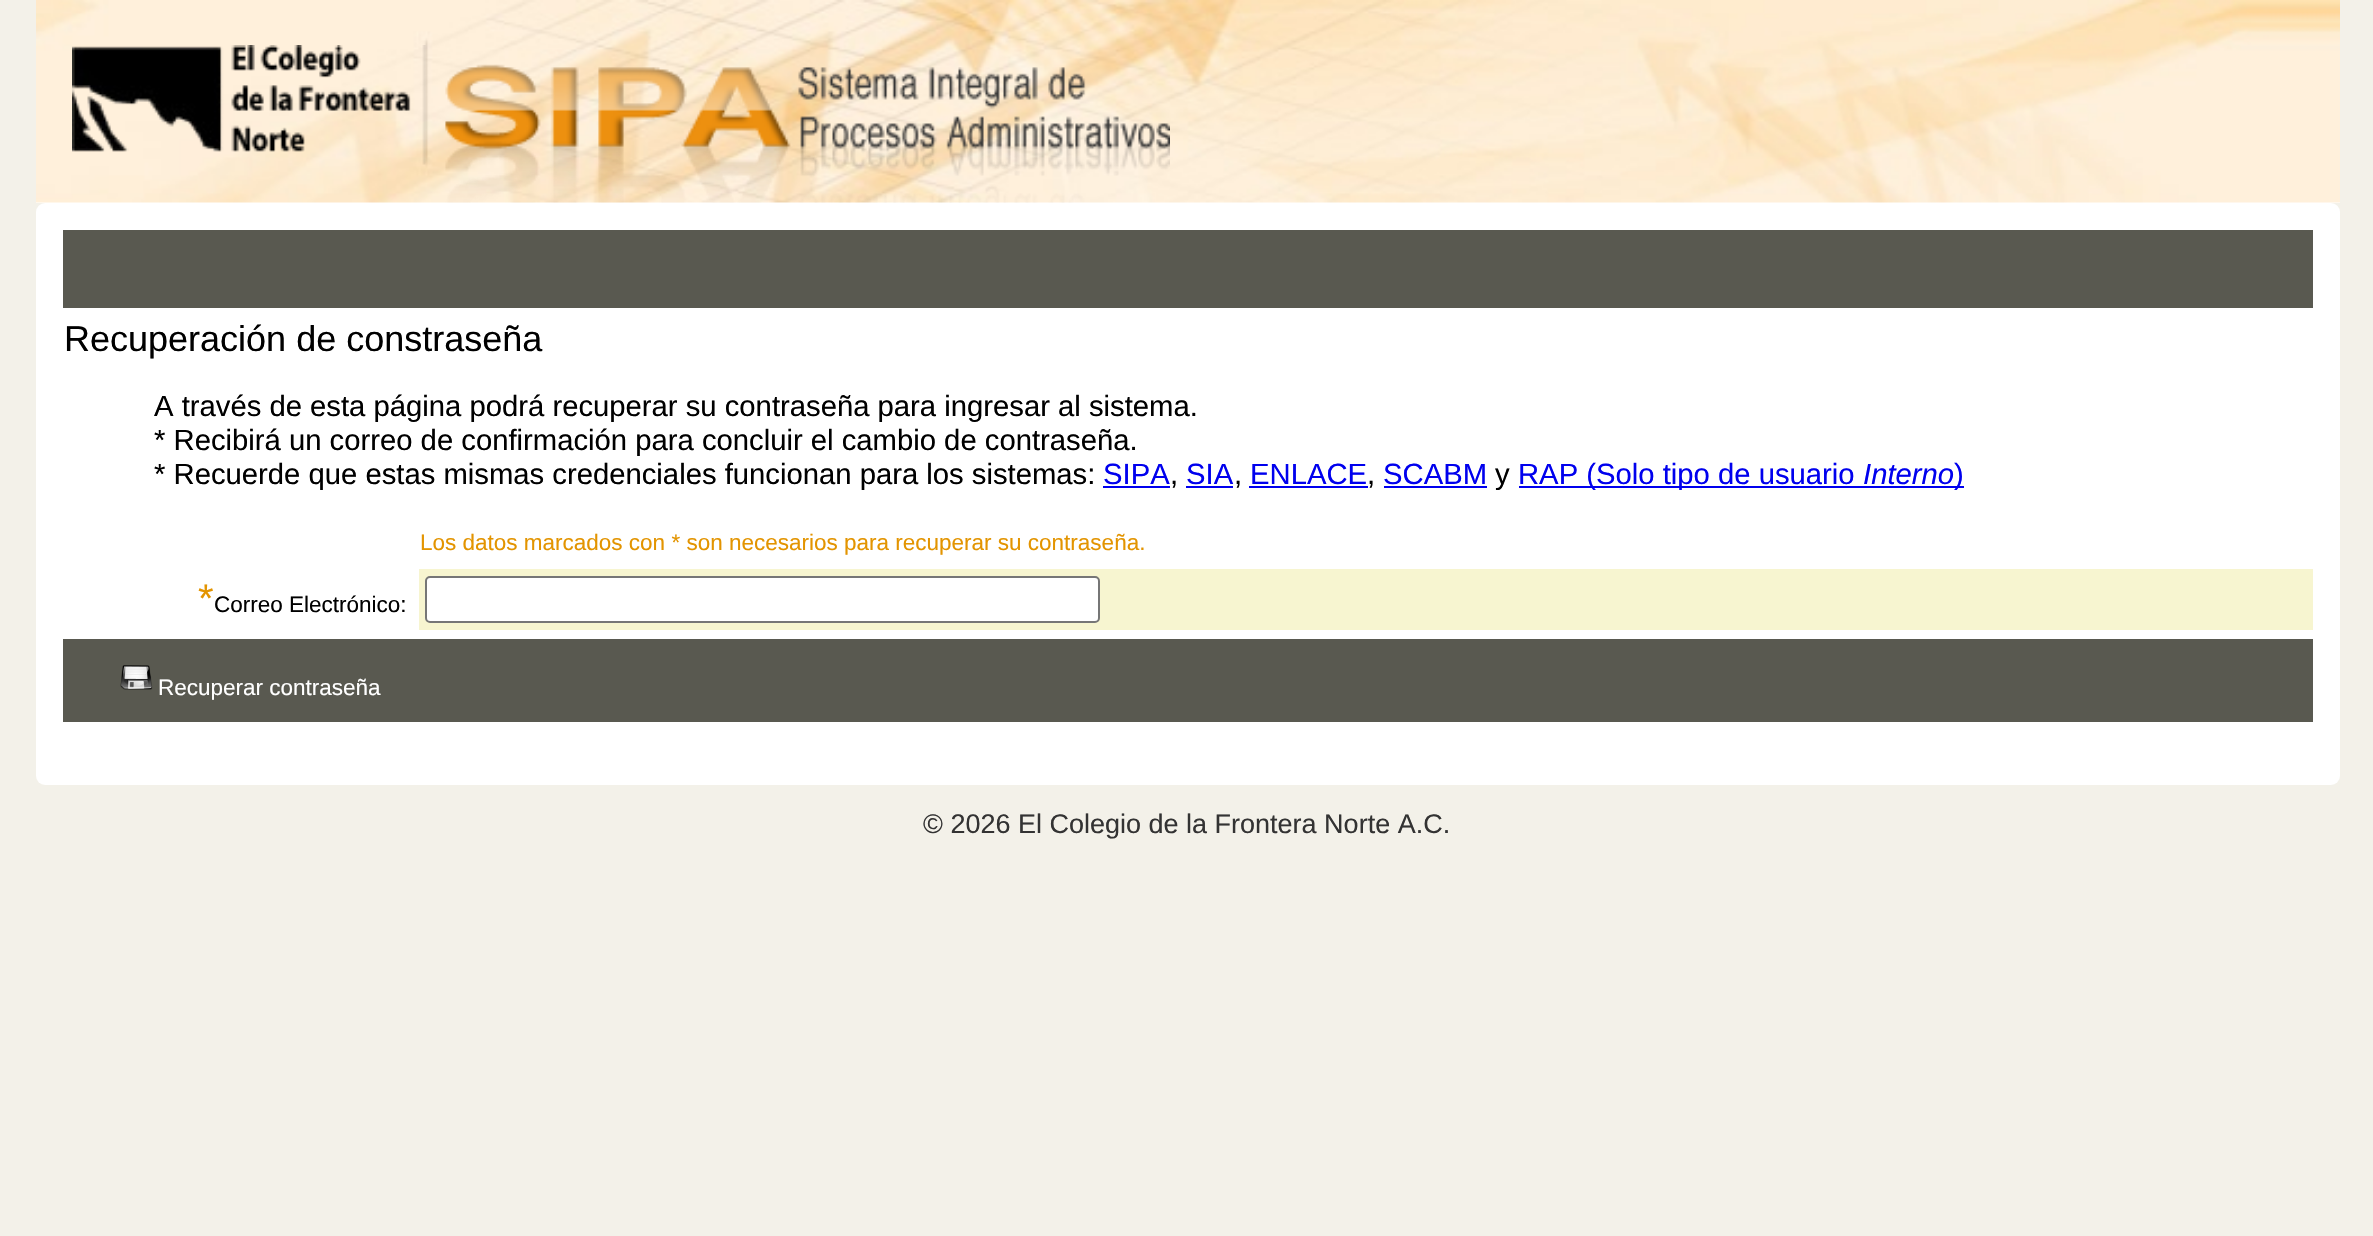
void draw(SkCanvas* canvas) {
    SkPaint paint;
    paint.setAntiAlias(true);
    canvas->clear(0xFFF3F1E9);
    paint.setColor(0xFFFFFFFF);
    canvas->drawRect(SkRect::MakeXYWH(36, 202, 2304, 1), paint);
    canvas->drawImageRect(SkImages::DeferredFromEncodedData(SkData::MakeFromFileName("img1.png")), SkRect::MakeXYWH(36, 0, 2304, 203), SkSamplingOptions());
    canvas->drawImageRect(SkImages::DeferredFromEncodedData(SkData::MakeFromFileName("img2.png")), SkRect::MakeXYWH(72, 45, 1098, 158), SkSamplingOptions());
    canvas->drawRoundRect(SkRect::MakeXYWH(36, 203, 2304, 582), 9, 9, paint);
    paint.setColor(0xFF595950);
    canvas->drawRect(SkRect::MakeXYWH(63, 230, 2250, 78), paint);
    SkFont font1(fontMgr->matchFamilyStyle("Liberation Sans", SkFontStyle::Normal()), 36);
    font1.setSubpixel(true);
    paint.setColor(0xFF000000);
    canvas->drawString("Recuperación de constraseña", 64, 351, font1, paint);
    SkFont font2(fontMgr->matchFamilyStyle("Liberation Sans", SkFontStyle::Normal()), 29.25f);
    font2.setSubpixel(true);
    canvas->drawString("A través de esta página podrá recuperar su contraseña para ingresar al sistema.", 154, 416, font2, paint);
    canvas->drawString("* Recibirá un correo de confirmación para concluir el cambio de contraseña.", 154, 450, font2, paint);
    canvas->drawString("* Recuerde que estas mismas credenciales funcionan para los sistemas:", 154, 484, font2, paint);
    paint.setColor(0xFF0000EE);
    canvas->drawString("SIPA", 1103, 484, font2, paint);
    paint.setColor(0xFF000000);
    canvas->drawString(",", 1170, 484, font2, paint);
    paint.setColor(0xFF0000EE);
    canvas->drawRect(SkRect::MakeXYWH(1103, 486, 67, 2), paint);
    canvas->drawString("SIA", 1186, 484, font2, paint);
    paint.setColor(0xFF000000);
    canvas->drawString(",", 1234, 484, font2, paint);
    paint.setColor(0xFF0000EE);
    canvas->drawRect(SkRect::MakeXYWH(1186, 486, 47, 2), paint);
    canvas->drawString("ENLACE", 1250, 484, font2, paint);
    paint.setColor(0xFF000000);
    canvas->drawString(",", 1367, 484, font2, paint);
    paint.setColor(0xFF0000EE);
    canvas->drawRect(SkRect::MakeXYWH(1249, 486, 119, 2), paint);
    canvas->drawRect(SkRect::MakeXYWH(1384, 486, 103, 2), paint);
    canvas->drawString("SCABM", 1383, 484, font2, paint);
    paint.setColor(0xFF000000);
    canvas->drawString("y", 1495, 484, font2, paint);
    paint.setColor(0xFF0000EE);
    canvas->drawRect(SkRect::MakeXYWH(1519, 486, 445, 2), paint);
    canvas->drawString("RAP (Solo tipo de usuario", 1518, 484, font2, paint);
    SkFont font3(fontMgr->matchFamilyStyle("Liberation Sans", SkFontStyle::Italic()), 29.25f);
    font3.setSubpixel(true);
    canvas->drawString("Interno", 1863, 484, font3, paint);
    canvas->drawString(")", 1954, 484, font2, paint);
    SkFont font4(fontMgr->matchFamilyStyle("Liberation Sans", SkFontStyle::Normal()), 22.5f);
    font4.setSubpixel(true);
    paint.setColor(0xFFE39400);
    canvas->drawString("Los datos marcados con * son necesarios para recuperar su contraseña.", 420, 550, font4, paint);
    SkFont font5(fontMgr->matchFamilyStyle("Liberation Sans", SkFontStyle::Normal()), 40);
    font5.setSubpixel(true);
    canvas->drawString("*", 198, 612, font5, paint);
    paint.setColor(0xFF000000);
    canvas->drawString("Correo Electrónico:", 214, 612, font4, paint);
    paint.setColor(0xFFF7F5D0);
    canvas->drawRect(SkRect::MakeXYWH(419, 569, 1894, 61), paint);
    paint.setColor(0xFFFFFFFF);
    canvas->drawRoundRect(SkRect::MakeXYWH(426, 577, 673, 45), 4, 4, paint);
    paint.setStyle(SkPaint::kStroke_Style);
    paint.setStrokeWidth(2);
    paint.setColor(0xFF767676);
    canvas->drawRoundRect(SkRect::MakeXYWH(426, 577, 673, 45), 4, 4, paint);
    paint.setStyle(SkPaint::kFill_Style);
    paint.setColor(0xFF595950);
    canvas->drawRect(SkRect::MakeXYWH(63, 639, 2250, 83), paint);
    canvas->drawImageRect(SkImages::DeferredFromEncodedData(SkData::MakeFromFileName("img3.png")), SkRect::MakeXYWH(120, 665, 33, 25), SkSamplingOptions());
    paint.setColor(0xFFFFFFFF);
    canvas->drawString("Recuperar contraseña", 158, 695, font4, paint);
    SkFont font6(fontMgr->matchFamilyStyle("Liberation Sans", SkFontStyle::Normal()), 27);
    font6.setSubpixel(true);
    paint.setColor(0xFF333333);
    canvas->drawString("© 2026 El Colegio de la Frontera Norte A.C.", 923, 833, font6, paint);
}
